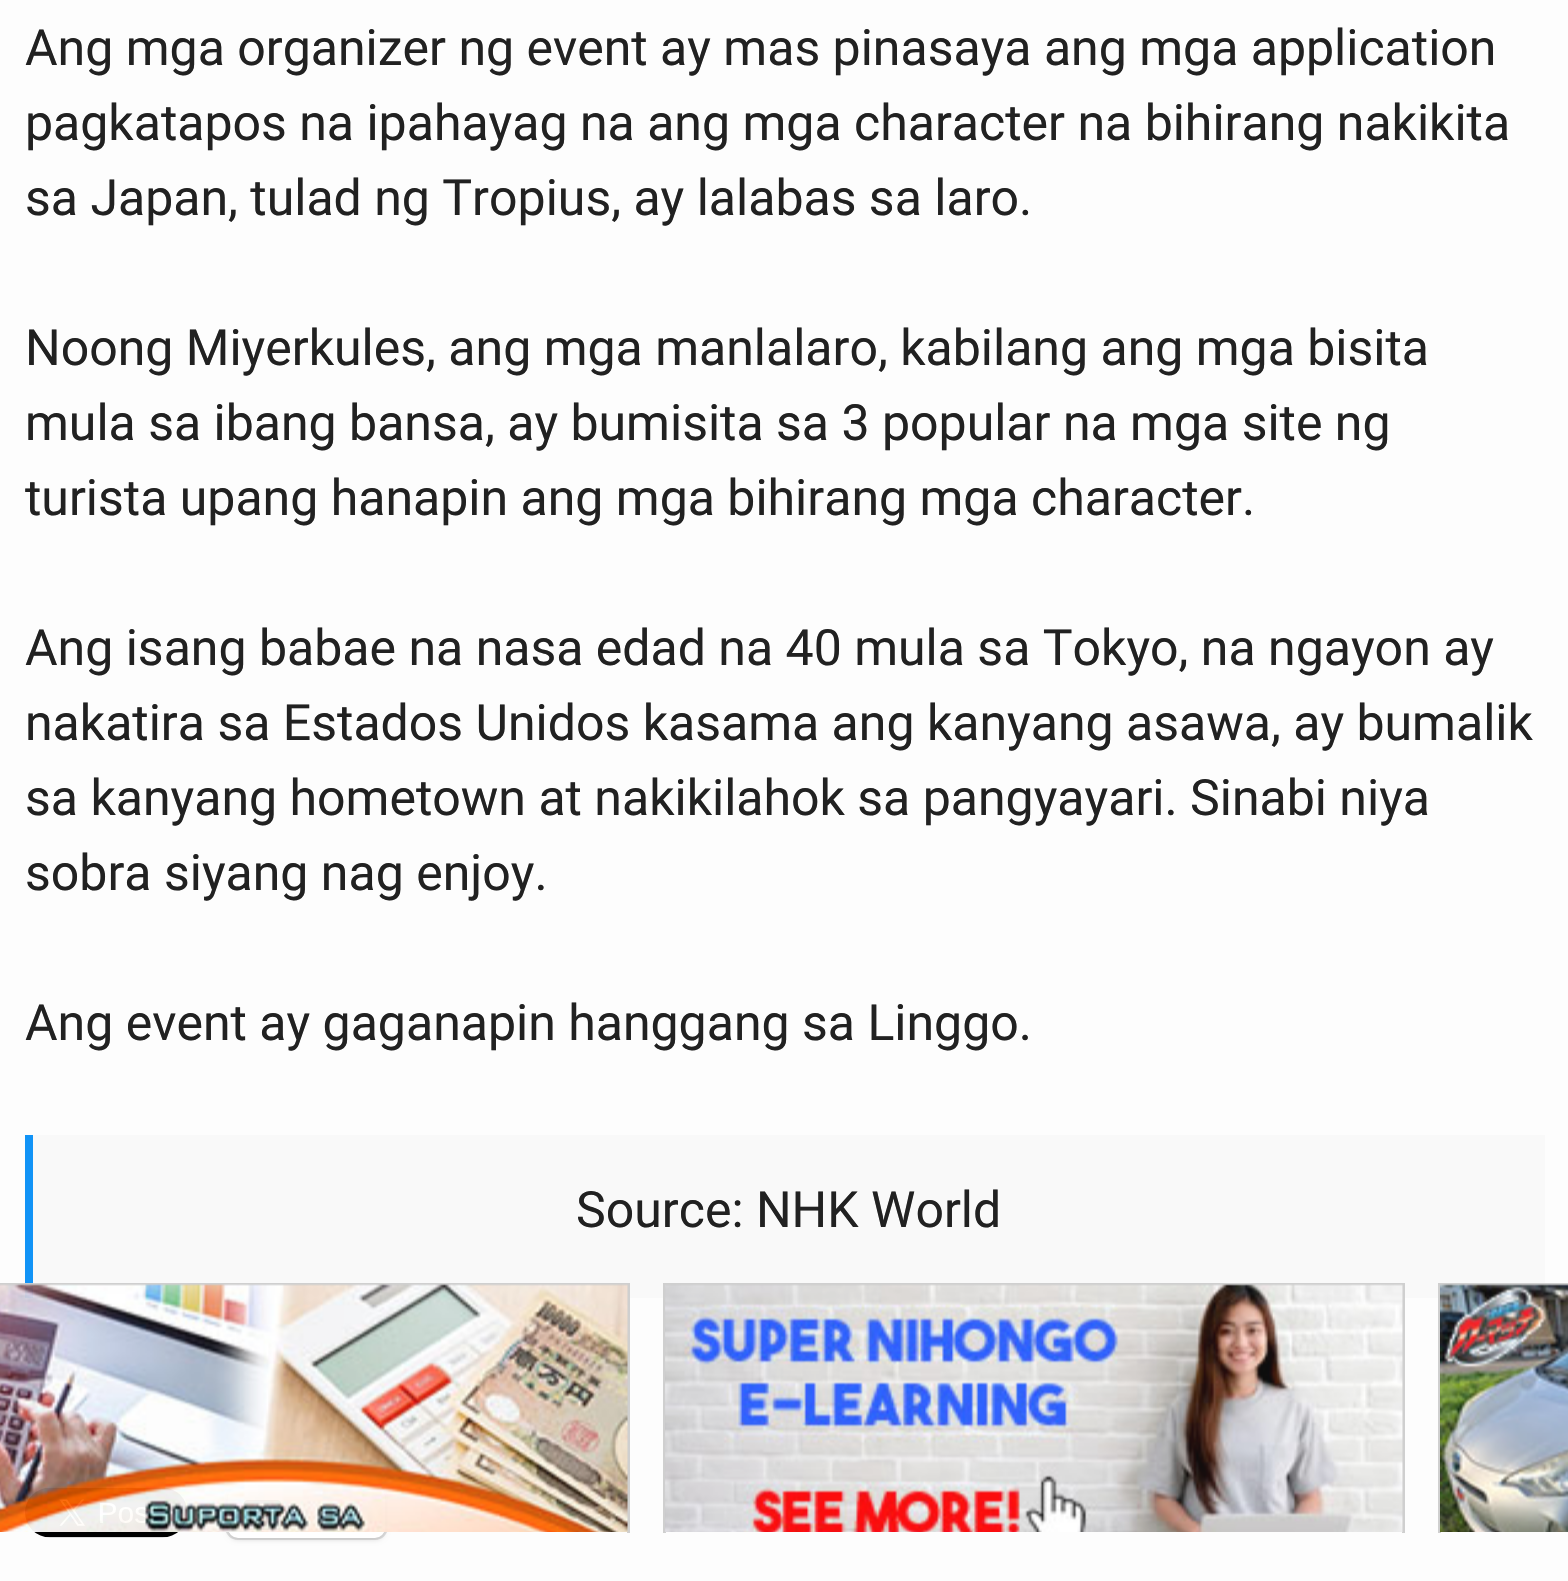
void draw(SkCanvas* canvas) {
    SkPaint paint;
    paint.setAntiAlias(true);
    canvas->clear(0xFFFDFDFD);
    SkFont font1(fontMgr->matchFamilyStyle("Roboto", SkFontStyle::Normal()), 50);
    font1.setSubpixel(true);
    paint.setColor(0xFF212121);
    canvas->drawString("Ang mga organizer ng event ay mas pinasaya ang mga application", 25, 65, font1, paint);
    canvas->drawString("pagkatapos na ipahayag na ang mga character na bihirang nakikita", 25, 140, font1, paint);
    canvas->drawString("sa Japan, tulad ng Tropius, ay lalabas sa laro.", 25, 215, font1, paint);
    canvas->drawString("Noong Miyerkules, ang mga manlalaro, kabilang ang mga bisita", 25, 365, font1, paint);
    canvas->drawString("mula sa ibang bansa, ay bumisita sa 3 popular na mga site ng", 25, 440, font1, paint);
    canvas->drawString("turista upang hanapin ang mga bihirang mga character.", 25, 515, font1, paint);
    canvas->drawString("Ang isang babae na nasa edad na 40 mula sa Tokyo, na ngayon ay", 25, 665, font1, paint);
    canvas->drawString("nakatira sa Estados Unidos kasama ang kanyang asawa, ay bumalik", 25, 740, font1, paint);
    canvas->drawString("sa kanyang hometown at nakikilahok sa pangyayari. Sinabi niya", 25, 815, font1, paint);
    canvas->drawString("sobra siyang nag enjoy.", 25, 890, font1, paint);
    canvas->drawString("Ang event ay gaganapin hanggang sa Linggo.", 25, 1040, font1, paint);
    paint.setColor(0xFFF9F9F9);
    canvas->drawRect(SkRect::MakeXYWH(33, 1135, 1512, 163), paint);
    paint.setColor(0xFF1193F6);
    canvas->drawRect(SkRect::MakeXYWH(25, 1135, 8, 163), paint);
    paint.setColor(0xFF212121);
    canvas->drawString("Source: NHK World", 576, 1227, font1, paint);
    canvas->drawImageRect(SkImages::DeferredFromEncodedData(SkData::MakeFromFileName("img1.png")), SkRect::MakeXYWH(25, 1487, 163, 51), SkSamplingOptions());
    paint.setStyle(SkPaint::kStroke_Style);
    paint.setStrokeWidth(3);
    paint.setColor(0xFFDFDFDF);
    canvas->drawRoundRect(SkRect::MakeXYWH(226.5f, 1486.5f, 160, 52), 11.5f, 11.5f, paint);
    paint.setStyle(SkPaint::kFill_Style);
    paint.setColor(0x1F000000);
    paint.setMaskFilter(SkMaskFilter::MakeBlur(kNormal_SkBlurStyle, 2.5f));
    canvas->drawRoundRect(SkRect::MakeXYWH(228, 1490, 157, 50), 10, 10, paint);
    paint.setMaskFilter(nullptr);
    paint.setColor(0xFFFFFFFF);
    canvas->drawRoundRect(SkRect::MakeXYWH(228, 1488, 157, 50), 10, 10, paint);
    canvas->drawImageRect(SkImages::DeferredFromEncodedData(SkData::MakeFromFileName("img2.png")), SkRect::MakeXYWH(243, 1500, 39, 30), SkSamplingOptions());
    canvas->save();
    canvas->clipRect(SkRect::MakeXYWH(0, 1283, 645, 250));
    paint.setStyle(SkPaint::kStroke_Style);
    paint.setColor(0xF2CCCCCC);
    canvas->drawRect(SkRect::MakeXYWH(-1.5f, 1284.5f, 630, 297), paint);
    canvas->restore();
    canvas->drawImageRect(SkImages::DeferredFromEncodedData(SkData::MakeFromFileName("img3.png")), SkRect::MakeXYWH(0, 1284, 628, 248), SkSamplingOptions());
    canvas->save();
    canvas->clipRect(SkRect::MakeXYWH(645, 1283, 775, 250));
    canvas->drawRect(SkRect::MakeXYWH(664.5f, 1284.5f, 739, 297), paint);
    canvas->restore();
    canvas->drawImageRect(SkImages::DeferredFromEncodedData(SkData::MakeFromFileName("img4.png")), SkRect::MakeXYWH(665, 1284, 738, 248), SkSamplingOptions());
    canvas->save();
    canvas->clipRect(SkRect::MakeXYWH(1420, 1283, 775, 250));
    canvas->drawRect(SkRect::MakeXYWH(1439.5f, 1284.5f, 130, 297), paint);
    canvas->restore();
    canvas->drawImageRect(SkImages::DeferredFromEncodedData(SkData::MakeFromFileName("img5.png")), SkRect::MakeXYWH(1440, 1284, 128, 248), SkSamplingOptions());
}
